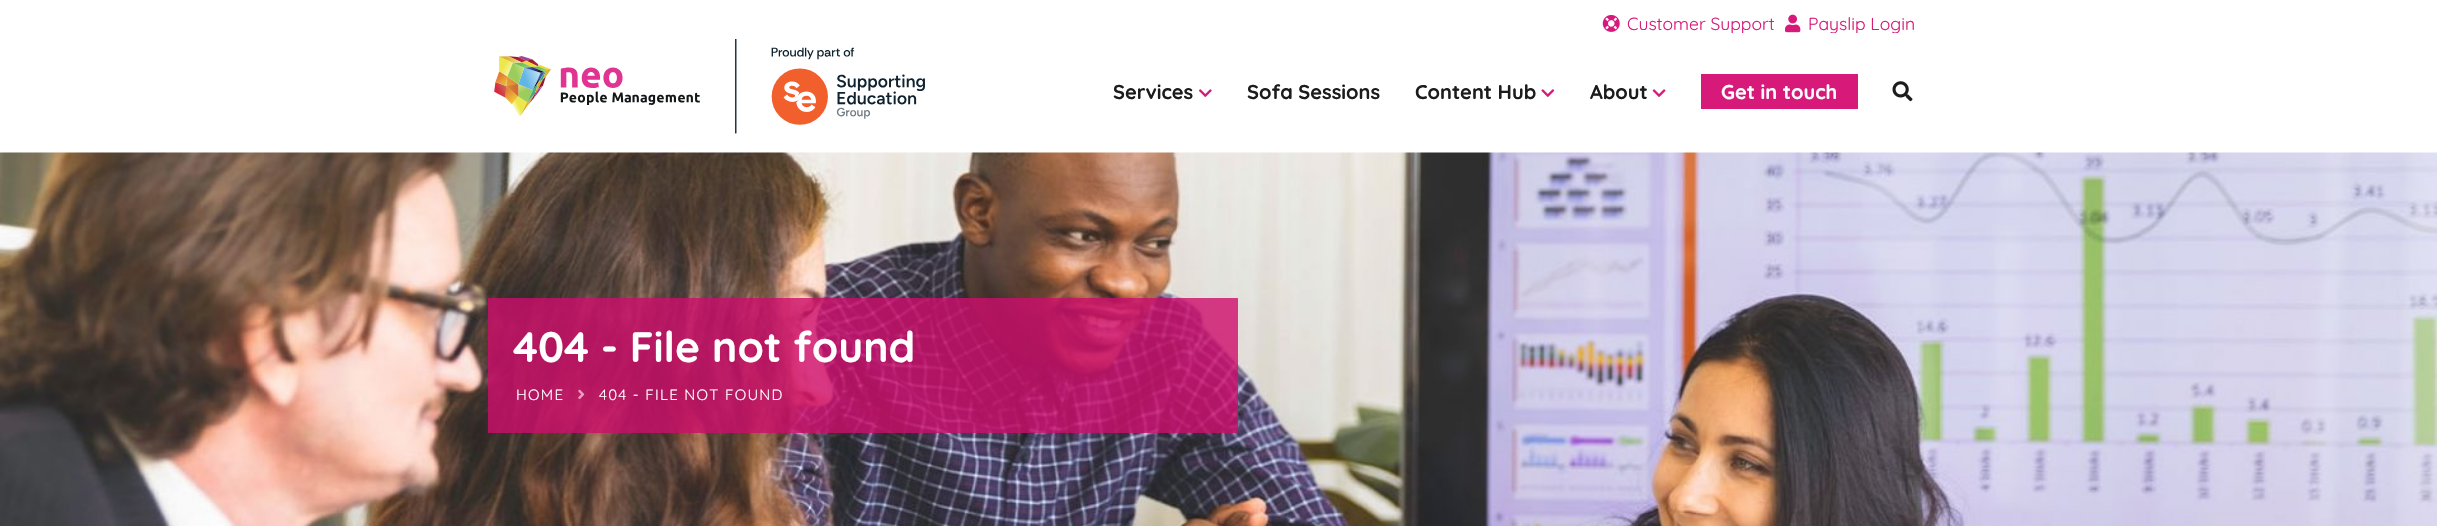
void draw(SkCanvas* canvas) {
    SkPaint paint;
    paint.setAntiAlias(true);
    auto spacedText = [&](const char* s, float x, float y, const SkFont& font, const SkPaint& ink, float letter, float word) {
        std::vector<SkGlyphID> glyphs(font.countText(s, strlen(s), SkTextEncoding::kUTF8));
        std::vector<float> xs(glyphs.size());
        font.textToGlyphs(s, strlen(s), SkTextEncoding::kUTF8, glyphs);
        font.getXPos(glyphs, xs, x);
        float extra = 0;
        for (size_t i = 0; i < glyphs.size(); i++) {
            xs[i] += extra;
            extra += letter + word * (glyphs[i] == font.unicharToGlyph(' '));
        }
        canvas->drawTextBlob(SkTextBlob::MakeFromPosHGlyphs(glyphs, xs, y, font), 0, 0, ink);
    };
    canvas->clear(0xFFFFFFFF);
    canvas->drawImageRect(SkImages::DeferredFromEncodedData(SkData::MakeFromFileName("img1.png")), SkRect::MakeXYWH(1602, 15, 18, 17), SkSamplingOptions());
    canvas->save();
    canvas->clipRect(SkRect::MakeXYWH(0, 0, 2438, 33));
    SkFont font1(fontMgr->matchFamilyStyle("Quicksand", SkFontStyle::Normal()), 17.5f);
    font1.setSubpixel(true);
    paint.setColor(0xFFD7197A);
    canvas->drawString("Customer Support", 1627, 30, font1, paint);
    canvas->restore();
    canvas->drawImageRect(SkImages::DeferredFromEncodedData(SkData::MakeFromFileName("img2.png")), SkRect::MakeXYWH(1785, 14, 16, 19), SkSamplingOptions());
    canvas->save();
    canvas->clipRect(SkRect::MakeXYWH(0, 0, 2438, 33));
    canvas->drawString("Payslip Login", 1808, 30, font1, paint);
    canvas->restore();
    canvas->drawImageRect(SkImages::DeferredFromEncodedData(SkData::MakeFromFileName("img3.png")), SkRect::MakeXYWH(494, 39, 431, 95), SkSamplingOptions());
    SkFont font2(fontMgr->matchFamilyStyle("Quicksand", SkFontStyle::Bold()), 20);
    font2.setSubpixel(true);
    paint.setColor(0xFF1C1C1C);
    canvas->drawString("Services", 1113, 99, font2, paint);
    canvas->drawImageRect(SkImages::DeferredFromEncodedData(SkData::MakeFromFileName("img4.png")), SkRect::MakeXYWH(1199, 89, 13, 8), SkSamplingOptions());
    canvas->drawString("Sofa Sessions", 1247, 99, font2, paint);
    canvas->drawString("Content Hub", 1415, 99, font2, paint);
    canvas->drawImageRect(SkImages::DeferredFromEncodedData(SkData::MakeFromFileName("img5.png")), SkRect::MakeXYWH(1541, 89, 14, 8), SkSamplingOptions());
    canvas->drawString("About", 1590, 99, font2, paint);
    canvas->drawImageRect(SkImages::DeferredFromEncodedData(SkData::MakeFromFileName("img6.png")), SkRect::MakeXYWH(1652, 89, 14, 8), SkSamplingOptions());
    paint.setColor(0xFFD7197A);
    canvas->drawRect(SkRect::MakeXYWH(1701, 74, 157, 35), paint);
    paint.setColor(0xFFFFFFFF);
    canvas->drawString("Get in touch", 1721, 99, font2, paint);
    canvas->drawImageRect(SkImages::DeferredFromEncodedData(SkData::MakeFromFileName("img7.png")), SkRect::MakeXYWH(1892, 81, 21, 21), SkSamplingOptions());
    canvas->drawImageRect(SkImages::DeferredFromEncodedData(SkData::MakeFromFileName("img8.png")), SkRect::MakeXYWH(0, 152, 2437, 374), SkSamplingOptions());
    paint.setColor(0xCCCE0C6B);
    canvas->drawRect(SkRect::MakeXYWH(488, 298, 750, 135), paint);
    SkFont font3(fontMgr->matchFamilyStyle("Quicksand", SkFontStyle::Bold()), 42.5f);
    font3.setSubpixel(true);
    paint.setColor(0xFFFFFFFF);
    canvas->drawString("404 - File not found", 513, 362, font3, paint);
    SkFont font4(fontMgr->matchFamilyStyle("Quicksand", SkFontStyle::Normal()), 15);
    font4.setSubpixel(true);
    spacedText("HOME", 516, 400, font4, paint, 1.25f, 0);
    canvas->drawImageRect(SkImages::DeferredFromEncodedData(SkData::MakeFromFileName("img9.png")), SkRect::MakeXYWH(578, 389, 7, 10), SkSamplingOptions());
    spacedText("404 - FILE NOT FOUND", 599, 400, font4, paint, 1.25f, 0);
}
